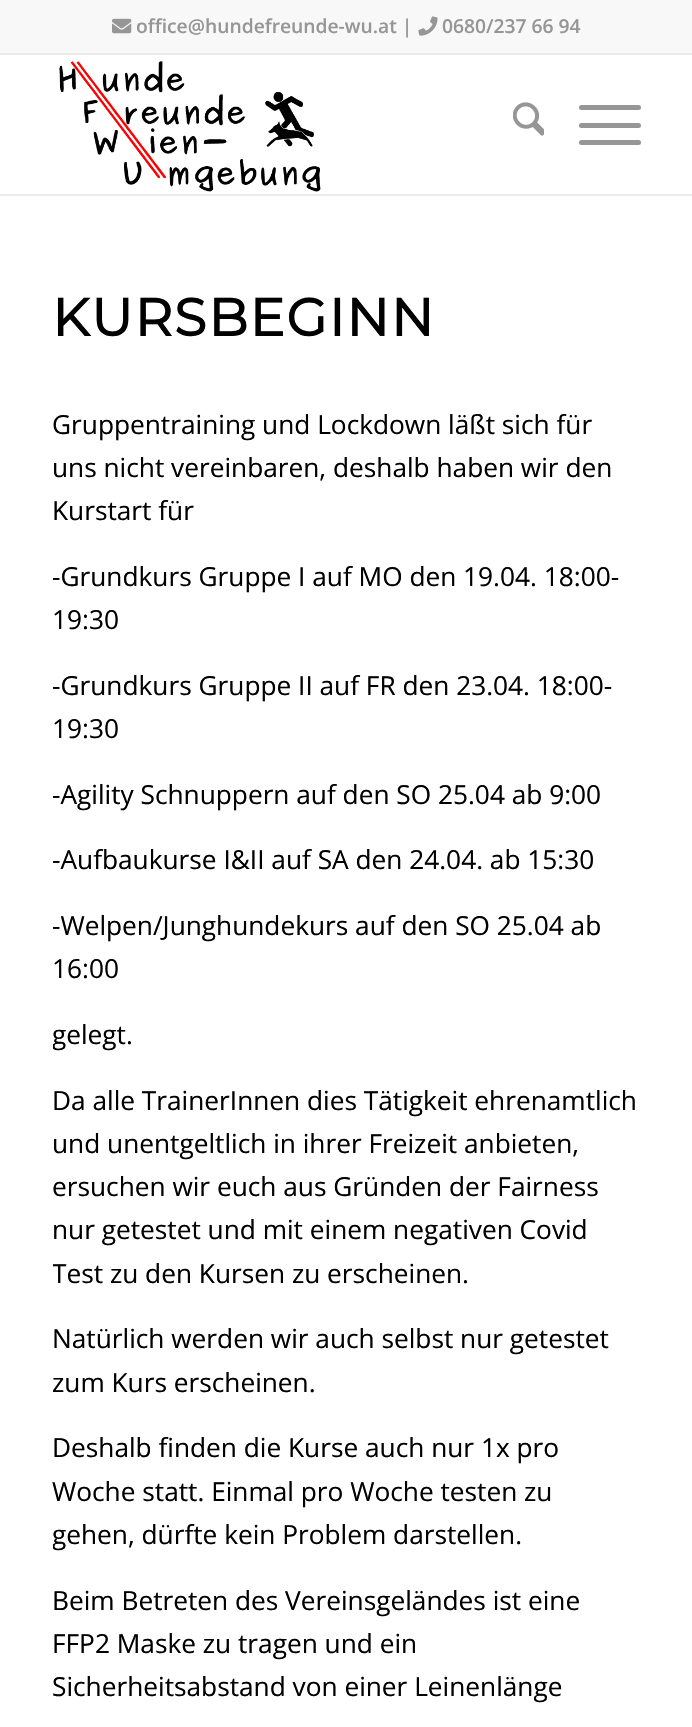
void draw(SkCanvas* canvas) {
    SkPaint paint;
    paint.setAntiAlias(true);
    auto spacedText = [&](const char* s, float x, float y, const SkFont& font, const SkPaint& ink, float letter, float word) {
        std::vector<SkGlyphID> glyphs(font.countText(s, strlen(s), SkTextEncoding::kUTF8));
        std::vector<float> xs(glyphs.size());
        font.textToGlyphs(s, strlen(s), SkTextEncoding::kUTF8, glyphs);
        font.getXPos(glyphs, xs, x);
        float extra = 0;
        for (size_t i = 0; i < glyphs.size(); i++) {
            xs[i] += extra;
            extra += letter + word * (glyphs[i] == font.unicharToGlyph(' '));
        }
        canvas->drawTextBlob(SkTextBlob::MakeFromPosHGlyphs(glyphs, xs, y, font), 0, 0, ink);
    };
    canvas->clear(0xFFFFFFFF);
    paint.setColor(0xFFF8F8F8);
    canvas->drawRect(SkRect::MakeXYWH(0, 0, 692, 53), paint);
    paint.setColor(0xFFEBEBEB);
    canvas->drawRect(SkRect::MakeXYWH(0, 53, 692, 2), paint);
    canvas->drawImageRect(SkImages::DeferredFromEncodedData(SkData::MakeFromFileName("img1.png")), SkRect::MakeXYWH(112, 18, 20, 16), SkSamplingOptions());
    SkFont font1(fontMgr->matchFamilyStyle("Open Sans", SkFontStyle(600, SkFontStyle::kNormal_Width, SkFontStyle::kUpright_Slant)), 19.25f);
    font1.setSubpixel(true);
    paint.setColor(0xFF969696);
    canvas->drawString("office@hundefreunde-wu.at |", 136, 33, font1, paint);
    canvas->drawImageRect(SkImages::DeferredFromEncodedData(SkData::MakeFromFileName("img2.png")), SkRect::MakeXYWH(418, 16, 20, 20), SkSamplingOptions());
    canvas->drawString("0680/237 66 94", 442, 33, font1, paint);
    paint.setColor(0xFFEBEBEB);
    canvas->drawRect(SkRect::MakeXYWH(0, 194, 692, 2), paint);
    canvas->drawImageRect(SkImages::DeferredFromEncodedData(SkData::MakeFromFileName("img3.png")), SkRect::MakeXYWH(59, 61, 262, 131), SkSamplingOptions());
    canvas->drawImageRect(SkImages::DeferredFromEncodedData(SkData::MakeFromFileName("img4.png")), SkRect::MakeXYWH(513, 102, 31, 34), SkSamplingOptions());
    paint.setColor(0xFF969696);
    canvas->drawRoundRect(SkRect::MakeXYWH(579, 123, 62, 5), 2.5f, 2.5f, paint);
    canvas->drawRoundRect(SkRect::MakeXYWH(579, 105, 62, 5), 2.5f, 2.5f, paint);
    canvas->drawRoundRect(SkRect::MakeXYWH(579, 140, 62, 5), 2.5f, 2.5f, paint);
    SkFont font2(fontMgr->matchFamilyStyle("Montserrat", SkFontStyle::Bold()), 52.5f);
    font2.setSubpixel(true);
    paint.setColor(0xFF000000);
    spacedText("KURSBEGINN", 52, 336, font2, paint, 1.75f, 0);
    SkFont font3(fontMgr->matchFamilyStyle("Open Sans", SkFontStyle::Normal()), 26.25f);
    font3.setSubpixel(true);
    canvas->drawString("Gruppentraining und Lockdown läßt sich für", 52, 434, font3, paint);
    canvas->drawString("uns nicht vereinbaren, deshalb haben wir den", 52, 477, font3, paint);
    canvas->drawString("Kurstart für", 52, 520, font3, paint);
    canvas->drawString("-Grundkurs Gruppe I auf MO den 19.04. 18:00-", 52, 586, font3, paint);
    canvas->drawString("19:30", 52, 629, font3, paint);
    canvas->drawString("-Grundkurs Gruppe II auf FR den 23.04. 18:00-", 52, 695, font3, paint);
    canvas->drawString("19:30", 52, 738, font3, paint);
    canvas->drawString("-Agility Schnuppern auf den SO 25.04 ab 9:00", 52, 804, font3, paint);
    canvas->drawString("-Aufbaukurse I&II auf SA den 24.04. ab 15:30", 52, 869, font3, paint);
    canvas->drawString("-Welpen/Junghundekurs auf den SO 25.04 ab", 52, 935, font3, paint);
    canvas->drawString("16:00", 52, 978, font3, paint);
    canvas->save();
    canvas->clipRect(SkRect::MakeXYWH(53, 284, 588, 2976));
    canvas->drawString("gelegt.", 52, 1044, font3, paint);
    canvas->restore();
    canvas->drawString("Da alle TrainerInnen dies Tätigkeit ehrenamtlich", 52, 1110, font3, paint);
    canvas->drawString("und unentgeltlich in ihrer Freizeit anbieten,", 52, 1153, font3, paint);
    canvas->drawString("ersuchen wir euch aus Gründen der Fairness", 52, 1196, font3, paint);
    canvas->drawString("nur getestet und mit einem negativen Covid", 52, 1239, font3, paint);
    canvas->save();
    canvas->clipRect(SkRect::MakeXYWH(53, 284, 588, 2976));
    canvas->drawString("Test zu den Kursen zu erscheinen.", 52, 1283, font3, paint);
    canvas->restore();
    canvas->drawString("Natürlich werden wir auch selbst nur getestet", 52, 1348, font3, paint);
    canvas->drawString("zum Kurs erscheinen.", 52, 1392, font3, paint);
    canvas->drawString("Deshalb finden die Kurse auch nur 1x pro", 52, 1457, font3, paint);
    canvas->drawString("Woche statt. Einmal pro Woche testen zu", 52, 1501, font3, paint);
    canvas->save();
    canvas->clipRect(SkRect::MakeXYWH(53, 284, 588, 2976));
    canvas->drawString("gehen, dürfte kein Problem darstellen.", 52, 1544, font3, paint);
    canvas->restore();
    canvas->drawString("Beim Betreten des Vereinsgeländes ist eine", 52, 1610, font3, paint);
    canvas->drawString("FFP2 Maske zu tragen und ein", 52, 1653, font3, paint);
    canvas->drawString("Sicherheitsabstand von einer Leinenlänge", 52, 1696, font3, paint);
}
